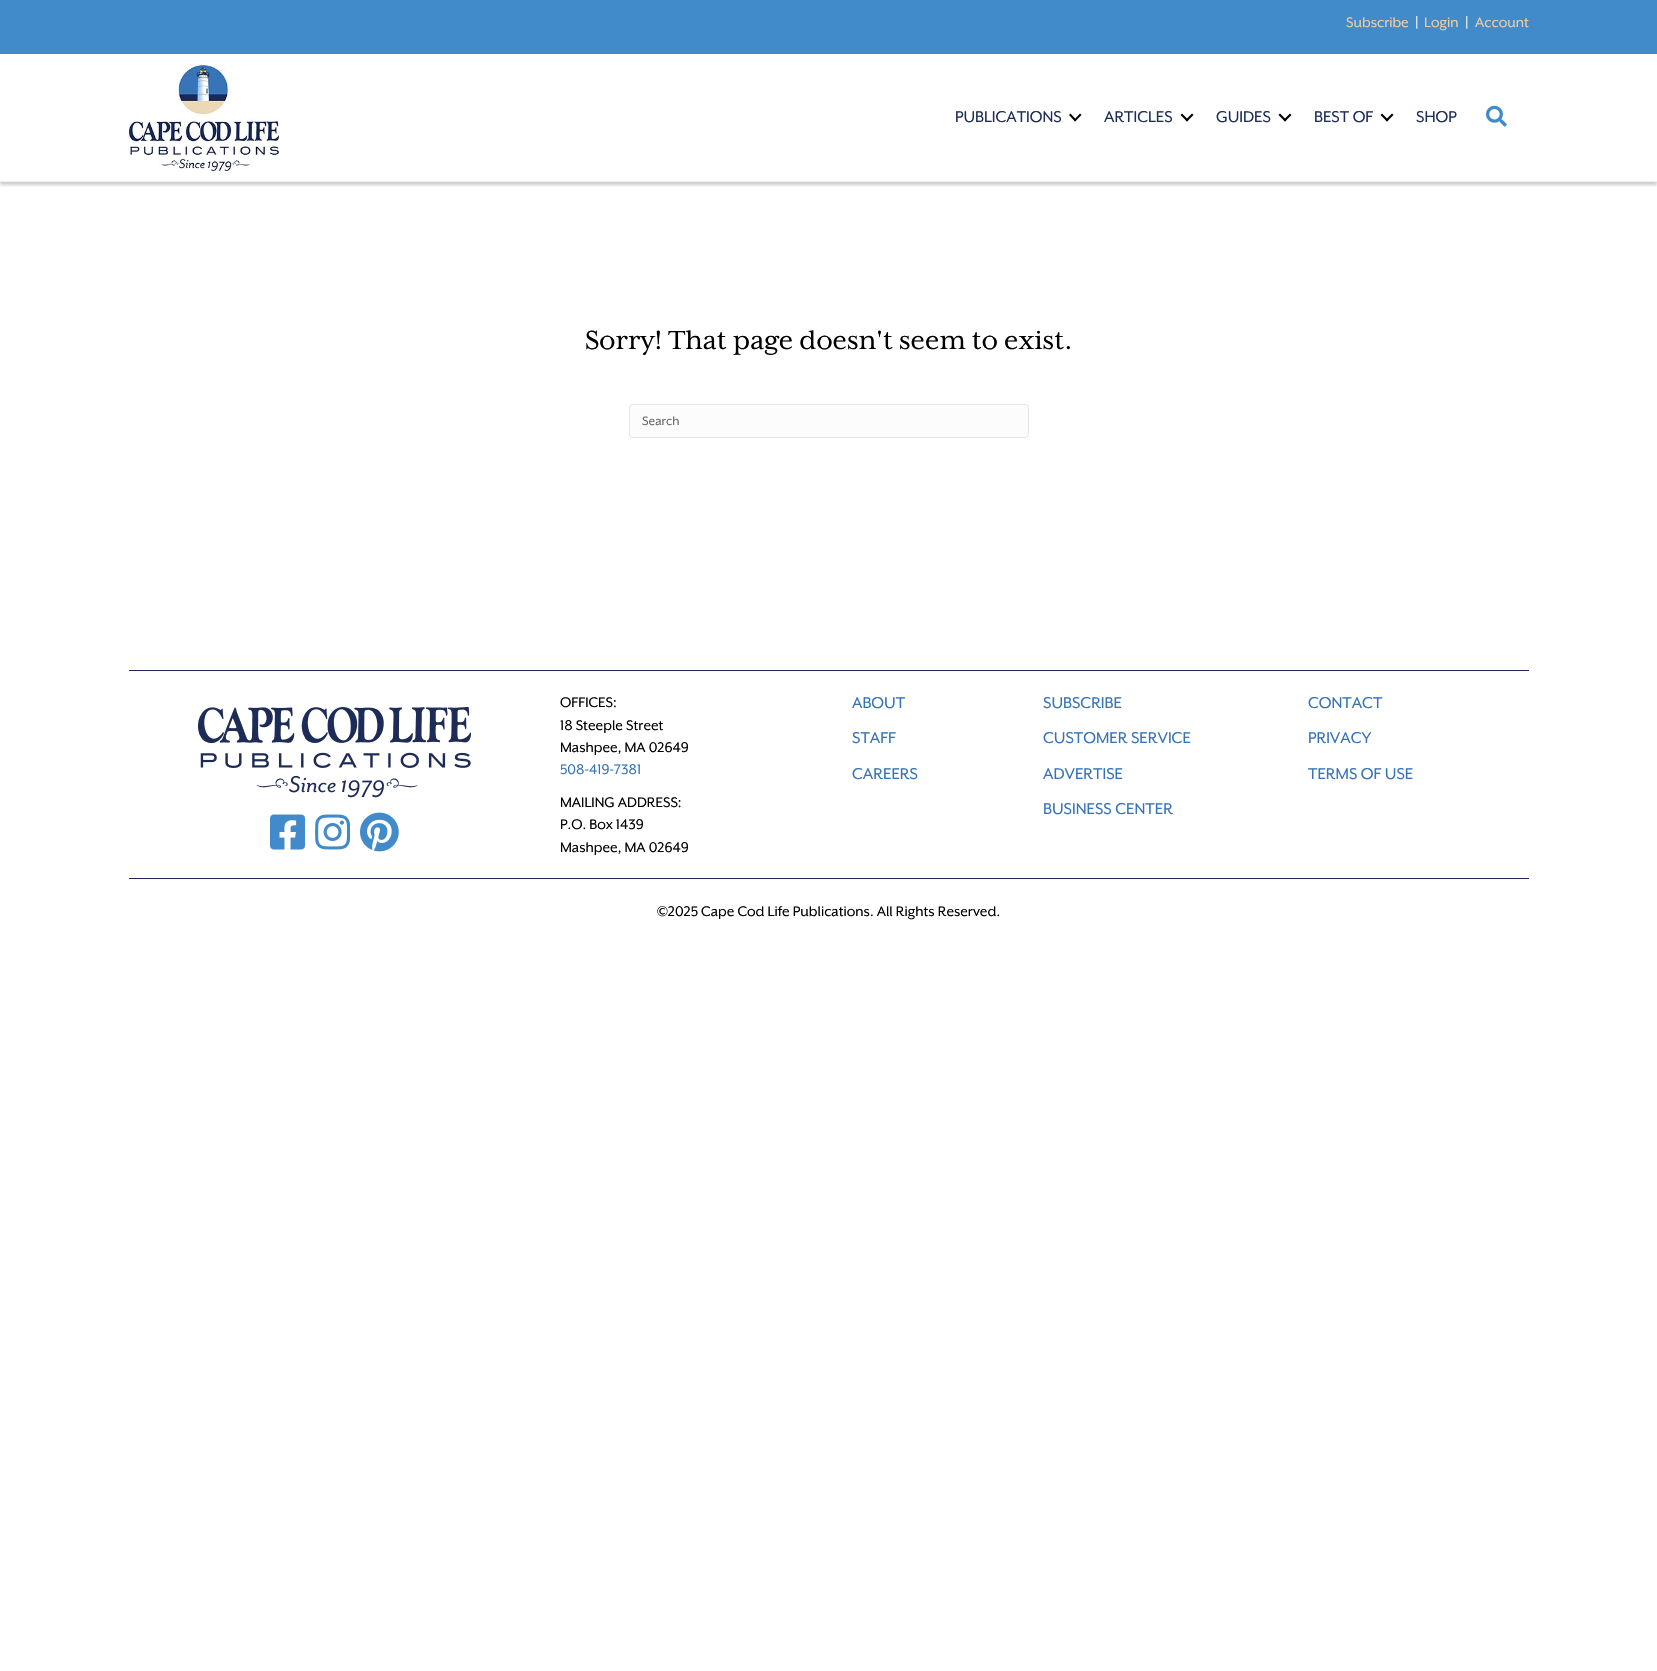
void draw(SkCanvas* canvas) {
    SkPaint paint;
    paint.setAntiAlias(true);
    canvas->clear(0xFFFFFFFF);
    paint.setColor(0xFF428BCA);
    canvas->drawRect(SkRect::MakeXYWH(0, 0, 1657, 54), paint);
    SkFont font1(fontMgr->matchFamilyStyle("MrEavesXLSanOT", SkFontStyle::Normal()), 16);
    font1.setSubpixel(true);
    paint.setColor(0xFFEBCDA7);
    canvas->drawString("Subscribe", 1346, 27, font1, paint);
    paint.setColor(0xFFFFFFFF);
    canvas->drawString("|", 1415, 27, font1, paint);
    paint.setColor(0xFFEBCDA7);
    canvas->drawString("Login", 1424, 27, font1, paint);
    paint.setColor(0xFFFFFFFF);
    canvas->drawString("|", 1465, 27, font1, paint);
    paint.setColor(0xFFEBCDA7);
    canvas->drawString("Account", 1475, 27, font1, paint);
    canvas->save();
    canvas->clipRect(SkRect::MakeXYWH(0, 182, 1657, 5));
    paint.setColor(0x33000000);
    paint.setMaskFilter(SkMaskFilter::MakeBlur(kNormal_SkBlurStyle, 1.5f));
    canvas->drawRect(SkRect::MakeXYWH(0, 57, 1657, 128), paint);
    paint.setMaskFilter(nullptr);
    canvas->restore();
    paint.setColor(0xFFEFEFEF);
    canvas->drawRect(SkRect::MakeXYWH(0, 181, 1657, 1), paint);
    canvas->drawImageRect(SkImages::DeferredFromEncodedData(SkData::MakeFromFileName("img1.png")), SkRect::MakeXYWH(129, 64, 150, 107), SkSamplingOptions());
    SkFont font2(fontMgr->matchFamilyStyle("MrEavesXLSanOT", SkFontStyle::Normal()), 18);
    font2.setSubpixel(true);
    paint.setColor(0xFF1D2C59);
    canvas->drawString("PUBLICATIONS", 955, 122, font2, paint);
    paint.setColor(0xFF000000);
    canvas->drawPath(SkPathBuilder().moveTo(1080, 113.5f).lineTo(1081.5f, 115).lineTo(1075, 121.5f).lineTo(1074, 120).close().detach(), paint);
    canvas->drawPath(SkPathBuilder().moveTo(1070.5f, 113.5f).lineTo(1076.5f, 120).lineTo(1075, 121.5f).lineTo(1069, 115).close().detach(), paint);
    paint.setColor(0xFF1D2C59);
    canvas->drawString("ARTICLES", 1104, 122, font2, paint);
    paint.setColor(0xFF000000);
    canvas->drawPath(SkPathBuilder().moveTo(1192, 113.5f).lineTo(1193.5f, 115).lineTo(1187, 121.5f).lineTo(1185.5f, 120).close().detach(), paint);
    canvas->drawPath(SkPathBuilder().moveTo(1182, 113.5f).lineTo(1188.5f, 120).lineTo(1187, 121.5f).lineTo(1180.5f, 115).close().detach(), paint);
    paint.setColor(0xFF1D2C59);
    canvas->drawString("GUIDES", 1216, 122, font2, paint);
    paint.setColor(0xFF000000);
    canvas->drawPath(SkPathBuilder().moveTo(1290, 113.5f).lineTo(1291.5f, 115).lineTo(1285, 121.5f).lineTo(1283.5f, 120).close().detach(), paint);
    canvas->drawPath(SkPathBuilder().moveTo(1280, 113.5f).lineTo(1286.5f, 120).lineTo(1285, 121.5f).lineTo(1278.5f, 115).close().detach(), paint);
    paint.setColor(0xFF1D2C59);
    canvas->drawString("BEST OF", 1314, 122, font2, paint);
    paint.setColor(0xFF000000);
    canvas->drawPath(SkPathBuilder().moveTo(1392, 113.5f).lineTo(1393.5f, 115).lineTo(1387, 121.5f).lineTo(1385.5f, 120).close().detach(), paint);
    canvas->drawPath(SkPathBuilder().moveTo(1382, 113.5f).lineTo(1388.5f, 120).lineTo(1387, 121.5f).lineTo(1380.5f, 115).close().detach(), paint);
    paint.setColor(0xFF1D2C59);
    canvas->drawString("SHOP", 1416, 122, font2, paint);
    canvas->drawImageRect(SkImages::DeferredFromEncodedData(SkData::MakeFromFileName("img2.png")), SkRect::MakeXYWH(1486, 105, 21, 22), SkSamplingOptions());
    SkFont font3(fontMgr->matchFamilyStyle("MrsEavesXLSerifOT", SkFontStyle::Normal()), 30);
    font3.setSubpixel(true);
    paint.setColor(0xFF000000);
    canvas->drawString("Sorry! That page doesn't seem to exist.", 585, 349, font3, paint);
    paint.setColor(0xFFFCFCFC);
    canvas->drawRoundRect(SkRect::MakeXYWH(629.5f, 404.5f, 399, 33), 3.5f, 3.5f, paint);
    paint.setStyle(SkPaint::kStroke_Style);
    paint.setStrokeWidth(1);
    paint.setColor(0xFFE6E6E6);
    canvas->drawRoundRect(SkRect::MakeXYWH(629.5f, 404.5f, 399, 33), 3.5f, 3.5f, paint);
    SkFont font4(fontMgr->matchFamilyStyle("MrEavesXLSanOT", SkFontStyle::Normal()), 14);
    font4.setSubpixel(true);
    paint.setStyle(SkPaint::kFill_Style);
    paint.setColor(0xFF656565);
    canvas->drawString("Search", 642, 425, font4, paint);
    paint.setColor(0xFF1D2C59);
    canvas->drawRect(SkRect::MakeXYWH(129, 670, 1400, 1), paint);
    canvas->drawImageRect(SkImages::DeferredFromEncodedData(SkData::MakeFromFileName("img3.png")), SkRect::MakeXYWH(198, 706, 273, 92), SkSamplingOptions());
    canvas->drawImageRect(SkImages::DeferredFromEncodedData(SkData::MakeFromFileName("img4.png")), SkRect::MakeXYWH(270, 814, 35, 36), SkSamplingOptions());
    canvas->drawImageRect(SkImages::DeferredFromEncodedData(SkData::MakeFromFileName("img5.png")), SkRect::MakeXYWH(315, 814, 36, 36), SkSamplingOptions());
    canvas->drawImageRect(SkImages::DeferredFromEncodedData(SkData::MakeFromFileName("img6.png")), SkRect::MakeXYWH(360, 812, 39, 40), SkSamplingOptions());
    paint.setColor(0xFF000000);
    canvas->drawString("OFFICES:", 560, 707, font1, paint);
    canvas->drawString("18 Steeple Street", 560, 730, font1, paint);
    canvas->drawString("Mashpee, MA 02649", 560, 752, font1, paint);
    paint.setColor(0xFF3673B7);
    canvas->drawString("508-419-7381", 560, 774, font1, paint);
    paint.setColor(0xFF000000);
    canvas->drawString("MAILING ADDRESS:", 560, 807, font1, paint);
    canvas->drawString("P.O. Box 1439", 560, 829, font1, paint);
    canvas->drawString("Mashpee, MA 02649", 560, 852, font1, paint);
    paint.setColor(0xFF3673B7);
    canvas->drawString("ABOUT", 852, 708, font2, paint);
    canvas->drawString("STAFF", 852, 743, font2, paint);
    canvas->drawString("CAREERS", 852, 779, font2, paint);
    canvas->drawString("SUBSCRIBE", 1043, 708, font2, paint);
    canvas->drawString("CUSTOMER SERVICE", 1043, 743, font2, paint);
    canvas->drawString("ADVERTISE", 1043, 779, font2, paint);
    canvas->drawString("BUSINESS CENTER", 1043, 814, font2, paint);
    canvas->drawString("CONTACT", 1308, 708, font2, paint);
    canvas->drawString("PRIVACY", 1308, 743, font2, paint);
    canvas->drawString("TERMS OF USE", 1308, 779, font2, paint);
    paint.setColor(0xFF1D2C59);
    canvas->drawRect(SkRect::MakeXYWH(129, 878, 1400, 1), paint);
    paint.setColor(0xFF000000);
    canvas->drawString("©2025 Cape Cod Life Publications. All Rights Reserved.", 657, 916, font1, paint);
}
